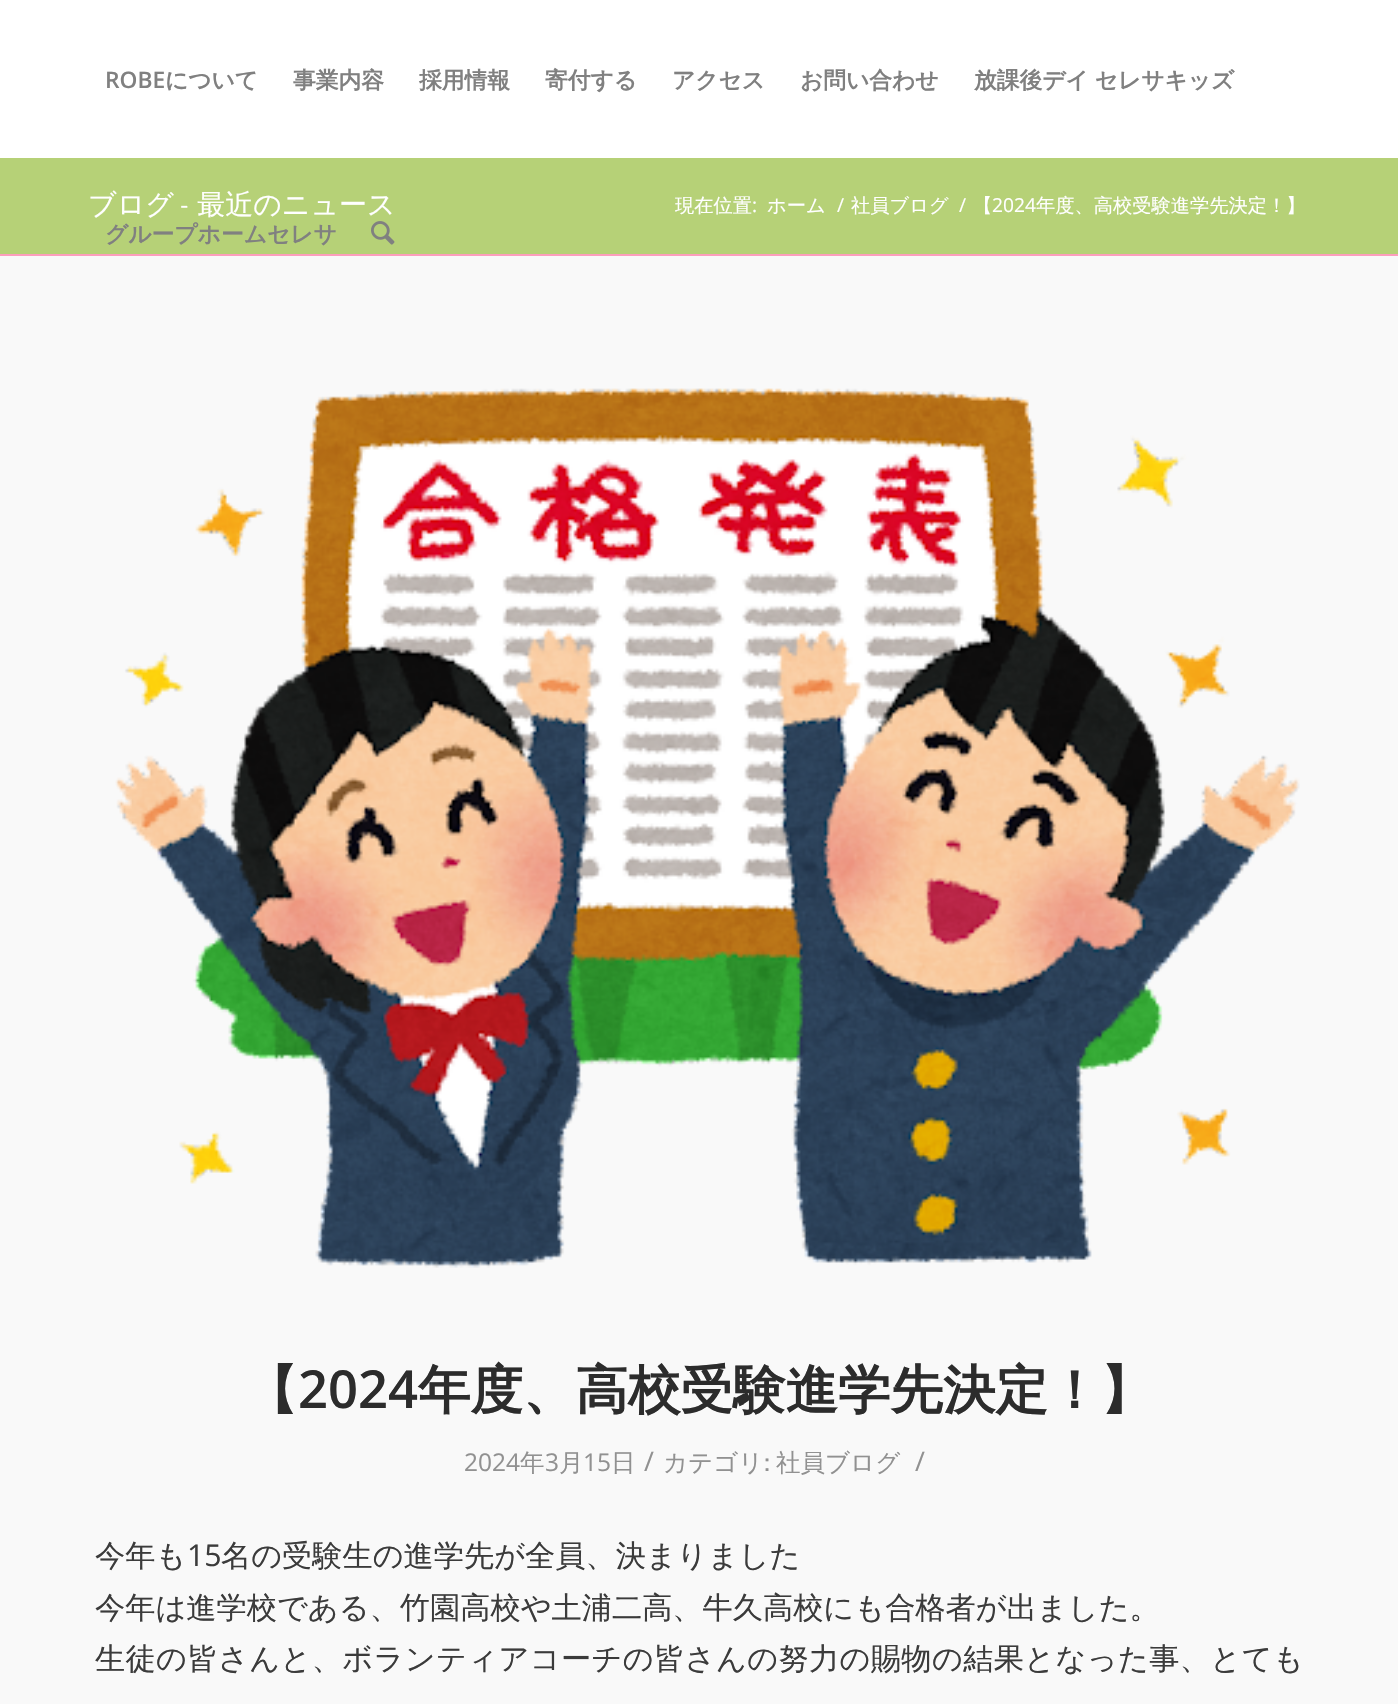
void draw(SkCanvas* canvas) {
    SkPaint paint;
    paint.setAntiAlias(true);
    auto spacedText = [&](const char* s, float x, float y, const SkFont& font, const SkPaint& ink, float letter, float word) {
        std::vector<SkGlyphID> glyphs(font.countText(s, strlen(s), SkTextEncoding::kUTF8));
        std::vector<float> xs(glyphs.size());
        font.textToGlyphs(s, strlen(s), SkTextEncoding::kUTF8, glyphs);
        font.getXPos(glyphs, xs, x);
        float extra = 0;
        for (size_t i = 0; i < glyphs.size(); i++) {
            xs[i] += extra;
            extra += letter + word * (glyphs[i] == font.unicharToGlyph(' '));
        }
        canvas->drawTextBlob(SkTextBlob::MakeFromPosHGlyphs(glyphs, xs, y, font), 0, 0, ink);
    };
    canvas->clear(0xFFB6D177);
    paint.setColor(0xFFFFFFFF);
    canvas->drawRect(SkRect::MakeXYWH(0, 0, 1398, 158), paint);
    SkFont font1(fontMgr->matchFamilyStyle("Open Sans", SkFontStyle(600, SkFontStyle::kNormal_Width, SkFontStyle::kUpright_Slant)), 22.75f);
    font1.setSubpixel(true);
    paint.setColor(0xFF808080);
    canvas->drawString("ROBE", 105, 88, font1, paint);
    SkFont font2(fontMgr->matchFamilyStyle("WenQuanYi Zen Hei", SkFontStyle::Bold()), 22.75f);
    font2.setSubpixel(true);
    canvas->drawString("について", 165, 88, font2, paint);
    canvas->drawString("事業内容", 293, 88, font2, paint);
    canvas->drawString("採用情報", 419, 88, font2, paint);
    canvas->drawString("寄付する", 545, 88, font2, paint);
    canvas->drawString("アクセス", 672, 88, font2, paint);
    canvas->drawString("お問い合わせ", 800, 88, font2, paint);
    spacedText("放課後デイ セレサキッズ", 974, 88, font2, paint, 0, -1);
    canvas->drawString("グループホームセレサ", 105, 242, font2, paint);
    canvas->drawImageRect(SkImages::DeferredFromEncodedData(SkData::MakeFromFileName("img1.png")), SkRect::MakeXYWH(371, 221, 24, 24), SkSamplingOptions());
    SkFont font3(fontMgr->matchFamilyStyle("WenQuanYi Zen Hei", SkFontStyle(500, SkFontStyle::kNormal_Width, SkFontStyle::kUpright_Slant)), 28);
    font3.setSubpixel(true);
    paint.setColor(0xFFFFFFFF);
    spacedText("ブログ - 最近のニュース", 88, 214, font3, paint, 0, -1);
    SkFont font4(fontMgr->matchFamilyStyle("WenQuanYi Zen Hei", SkFontStyle(500, SkFontStyle::kNormal_Width, SkFontStyle::kUpright_Slant)), 19.25f);
    font4.setSubpixel(true);
    canvas->drawString("現在位置", 675, 212, font4, paint);
    SkFont font5(fontMgr->matchFamilyStyle("Open Sans", SkFontStyle::Normal()), 19.25f);
    font5.setSubpixel(true);
    canvas->drawString(":", 752, 212, font5, paint);
    canvas->drawString("ホーム", 767, 212, font4, paint);
    canvas->drawString("/", 837, 212, font5, paint);
    canvas->drawString("社員ブログ", 851, 212, font4, paint);
    canvas->drawString("/", 959, 212, font5, paint);
    canvas->drawString("【", 973, 212, font4, paint);
    canvas->drawString("2024", 992, 212, font5, paint);
    canvas->drawString("年度、高校受験進学先決定！】", 1036, 212, font4, paint);
    paint.setColor(0xFFF9F9F9);
    canvas->drawRect(SkRect::MakeXYWH(0, 256, 1398, 1448), paint);
    paint.setColor(0xFFFC9EBC);
    canvas->drawRect(SkRect::MakeXYWH(0, 254, 1398, 2), paint);
    canvas->drawImageRect(SkImages::DeferredFromEncodedData(SkData::MakeFromFileName("img2.png")), SkRect::MakeXYWH(115, 388, 1185, 880), SkSamplingOptions());
    SkFont font6(fontMgr->matchFamilyStyle("WenQuanYi Zen Hei", SkFontStyle::Bold()), 52.5f);
    font6.setSubpixel(true);
    paint.setColor(0xFF2C2C2C);
    canvas->drawString("【", 245, 1408, font6, paint);
    SkFont font7(fontMgr->matchFamilyStyle("Open Sans", SkFontStyle(600, SkFontStyle::kNormal_Width, SkFontStyle::kUpright_Slant)), 52.5f);
    font7.setSubpixel(true);
    canvas->drawString("2024", 298, 1408, font7, paint);
    canvas->drawString("年度、高校受験進学先決定！】", 418, 1408, font6, paint);
    SkFont font8(fontMgr->matchFamilyStyle("Open Sans", SkFontStyle::Normal()), 24.5f);
    font8.setSubpixel(true);
    paint.setColor(0xFF919191);
    canvas->drawString("2024", 464, 1471, font8, paint);
    SkFont font9(fontMgr->matchFamilyStyle("WenQuanYi Zen Hei", SkFontStyle(500, SkFontStyle::kNormal_Width, SkFontStyle::kUpright_Slant)), 24.5f);
    font9.setSubpixel(true);
    canvas->drawString("年", 520, 1471, font9, paint);
    canvas->drawString("3", 545, 1471, font8, paint);
    canvas->drawString("月", 559, 1471, font9, paint);
    canvas->drawString("15", 583, 1471, font8, paint);
    canvas->drawString("日", 611, 1471, font9, paint);
    SkFont font10(fontMgr->matchFamilyStyle("Open Sans", SkFontStyle::Normal()), 27);
    font10.setSubpixel(true);
    canvas->drawString("/", 644, 1471, font10, paint);
    canvas->drawString("カテゴリ:", 663, 1471, font9, paint);
    canvas->drawString("社員ブログ", 776, 1471, font9, paint);
    canvas->drawString("/", 915, 1471, font10, paint);
    SkFont font11(fontMgr->matchFamilyStyle("WenQuanYi Zen Hei", SkFontStyle(500, SkFontStyle::kNormal_Width, SkFontStyle::kUpright_Slant)), 30.2f);
    font11.setSubpixel(true);
    paint.setColor(0xFF3B3B3B);
    canvas->drawString("今年も", 95, 1566, font11, paint);
    SkFont font12(fontMgr->matchFamilyStyle("Open Sans", SkFontStyle::Normal()), 30.2f);
    font12.setSubpixel(true);
    canvas->drawString("15", 187, 1566, font12, paint);
    canvas->drawString("名の受験生の進学先が全員、決まりました", 221, 1566, font11, paint);
    canvas->drawString("今年は進学校である、竹園高校や土浦二高、牛久高校にも合格者が出ました。", 95, 1618, font11, paint);
    spacedText("生徒の皆さんと、ボランティアコーチの皆さんの努力の賜物の結果となった事、とても", 95, 1669, font11, paint, 0.35f, 0);
}
